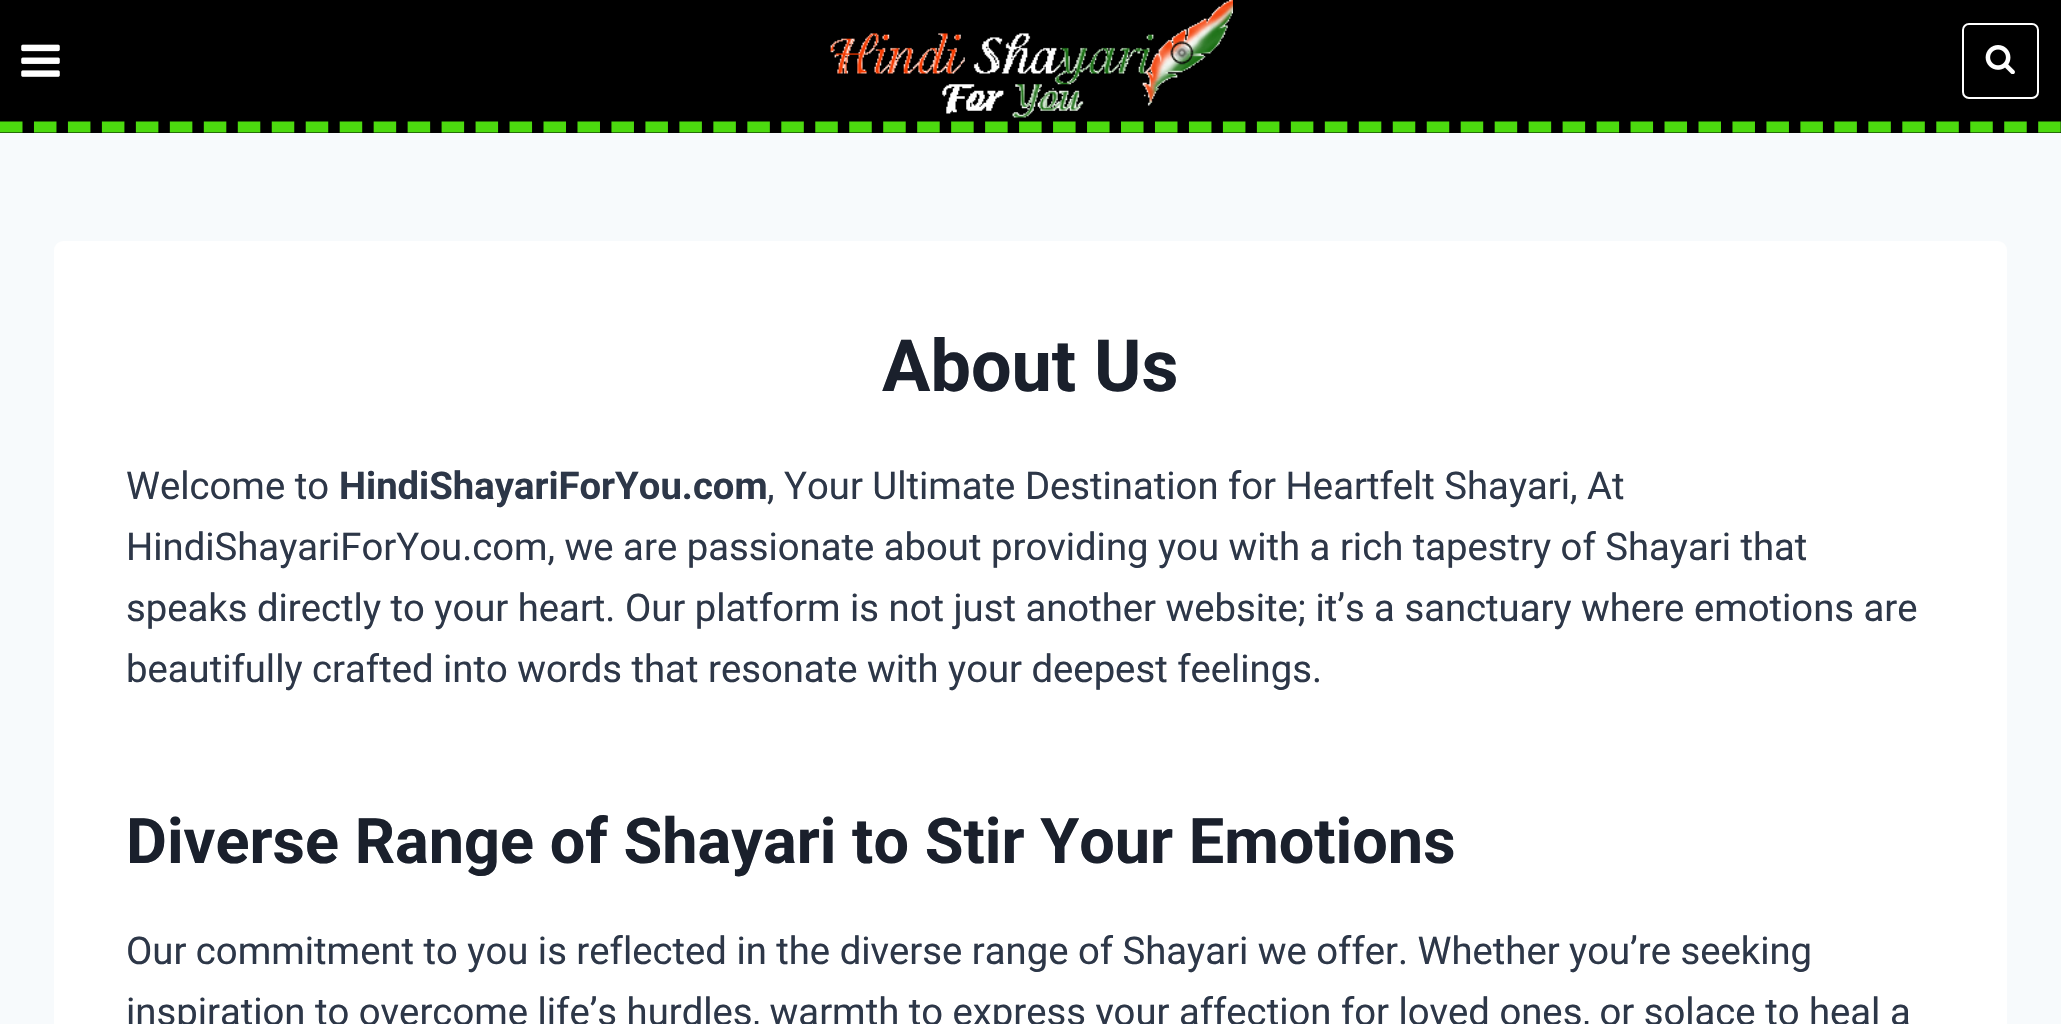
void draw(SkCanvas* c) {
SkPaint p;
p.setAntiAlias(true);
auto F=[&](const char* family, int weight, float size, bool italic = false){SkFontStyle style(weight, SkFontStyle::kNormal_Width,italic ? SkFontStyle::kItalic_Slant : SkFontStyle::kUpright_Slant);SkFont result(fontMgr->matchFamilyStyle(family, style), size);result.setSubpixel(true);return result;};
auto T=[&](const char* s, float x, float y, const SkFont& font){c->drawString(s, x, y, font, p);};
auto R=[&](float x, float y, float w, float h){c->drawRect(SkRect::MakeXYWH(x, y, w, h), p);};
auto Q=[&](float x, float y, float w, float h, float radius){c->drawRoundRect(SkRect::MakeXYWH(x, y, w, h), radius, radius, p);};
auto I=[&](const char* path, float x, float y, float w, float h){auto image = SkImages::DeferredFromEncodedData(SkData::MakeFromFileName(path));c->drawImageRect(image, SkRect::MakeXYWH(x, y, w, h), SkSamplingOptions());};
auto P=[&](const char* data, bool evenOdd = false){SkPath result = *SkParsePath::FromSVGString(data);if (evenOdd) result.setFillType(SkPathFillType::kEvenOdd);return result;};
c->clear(0xfff7fafc);
p.setColor(0xff000000);
R(0,0,2061,133);
p.setStroke(true);
p.setStrokeWidth(11.2);
p.setColor(0xff4cda0f);
p.setPathEffect(SkDashPathEffect::Make({{22.5f,11.47f}}, 0));
c->drawPath(P("M0 127h2061"),p);
p.setPathEffect(nullptr);
I("1.png",21,44,39,33);
I("2.png",830,0,403,118);
p.setStrokeWidth(2);
p.setColor(0xffffffff);
c->drawRoundRect(SkRect::MakeXYWH(1963,24,75,74),6,6,p);
I("3.png",1985,45,30,29);
p.setStroke(false);
Q(54,241,1953,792,9);
auto f1 = F("Roboto",700,72);
p.setColor(0xff1a202c);
T("About Us",882,391,f1);
auto f2 = F("Roboto",400,38.25);
p.setColor(0xff2d3748);
T("Welcome to",126,499,f2);
auto f3 = F("Roboto",700,38.25);
T("HindiShayariForYou.com",339,499,f3);
T(", Your Ultimate Destination for Heartfelt Shayari, At",767,499,f2);
T("HindiShayariForYou.com, we are passionate about providing you with a rich tapestry of Shayari that",126,560,f2);
T("speaks directly to your heart. Our platform is not just another website; it’s a sanctuary where emotions are",126,621,f2);
T("beautifully crafted into words that resonate with your deepest feelings.",126,682,f2);
auto f4 = F("Roboto",700,63);
p.setColor(0xff1a202c);
T("Diverse Range of Shayari to Stir Your Emotions",126,863,f4);
p.setColor(0xff2d3748);
T("Our commitment to you is reflected in the diverse range of Shayari we offer. Whether you’re seeking",126,964,f2);
T("inspiration to overcome life’s hurdles, warmth to express your affection for loved ones, or solace to heal a",126,1025,f2);
}
